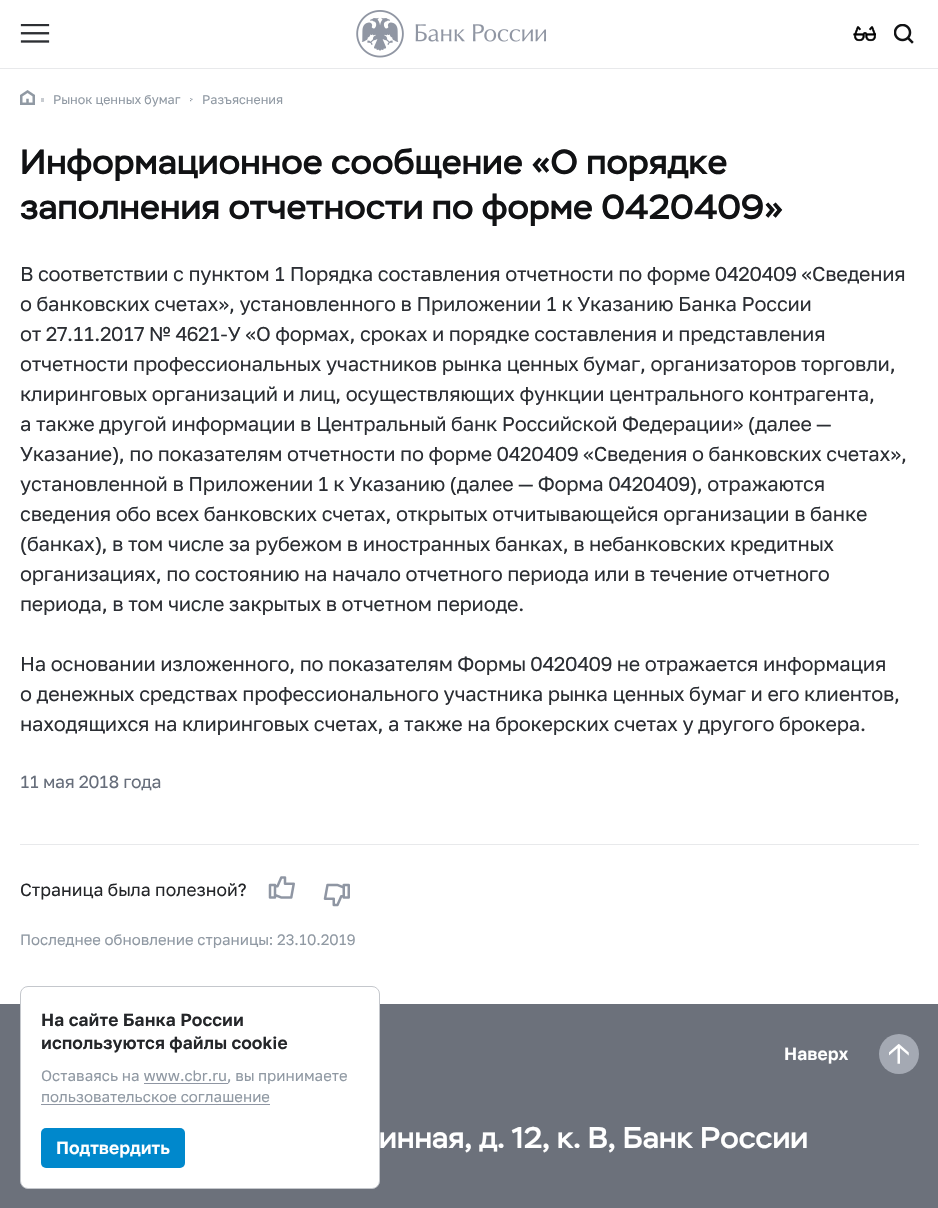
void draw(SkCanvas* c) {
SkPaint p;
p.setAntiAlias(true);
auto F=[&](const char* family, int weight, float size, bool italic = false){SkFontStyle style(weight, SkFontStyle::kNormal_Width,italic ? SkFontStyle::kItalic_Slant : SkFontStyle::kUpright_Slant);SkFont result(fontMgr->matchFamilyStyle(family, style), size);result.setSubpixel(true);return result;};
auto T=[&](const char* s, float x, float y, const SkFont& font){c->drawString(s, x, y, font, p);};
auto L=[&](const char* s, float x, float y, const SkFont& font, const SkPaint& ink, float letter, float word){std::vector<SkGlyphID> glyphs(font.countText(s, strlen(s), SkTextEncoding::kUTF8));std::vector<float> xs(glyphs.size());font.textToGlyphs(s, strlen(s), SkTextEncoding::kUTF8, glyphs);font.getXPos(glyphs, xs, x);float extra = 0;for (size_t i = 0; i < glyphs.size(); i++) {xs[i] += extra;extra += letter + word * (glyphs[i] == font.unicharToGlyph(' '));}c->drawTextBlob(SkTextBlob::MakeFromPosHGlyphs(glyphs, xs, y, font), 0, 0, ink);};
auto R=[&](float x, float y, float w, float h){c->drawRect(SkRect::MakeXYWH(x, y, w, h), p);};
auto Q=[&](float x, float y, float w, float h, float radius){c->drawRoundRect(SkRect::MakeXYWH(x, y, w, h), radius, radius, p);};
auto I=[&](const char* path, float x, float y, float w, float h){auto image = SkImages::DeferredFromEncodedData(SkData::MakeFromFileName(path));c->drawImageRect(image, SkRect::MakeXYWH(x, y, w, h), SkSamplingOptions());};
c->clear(0xffffffff);
p.setColor(0xffe8e9eb);
R(0,68,938,1);
I("1.png",20,24,30,19);
I("2.png",356,10,190,48);
I("3.png",853,26,23,16);
I("4.png",894,24,20,20);
I("5.png",20,90,15,15);
p.setColor(0xffc8ccd1);
R(41,98,3,4);
auto f1 = F("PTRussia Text",400,12.5);
p.setColor(0xff9099a3);
T("Рынок ценных бумаг",53,104,f1);
I("6.png",190,98,3,4);
T("Разъяснения",202,104,f1);
auto f2 = F("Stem",500,35);
p.setColor(0xff111214);
T("Информационное сообщение «О порядке",20,174,f2);
T("заполнения отчетности по форме 0420409»",20,219,f2);
auto f3 = F("PTRussia Text",400,20);
p.setColor(0xff2b2e33);
L("В соответствии с пунктом 1 Порядка составления отчетности по форме 0420409 «Сведения",20,281,f3,p,-.25,0);
L("о банковских счетах», установленного в Приложении 1 к Указанию Банка России",20,311,f3,p,-.25,0);
L("от 27.11.2017 № 4621-У «О формах, сроках и порядке составления и представления",20,341,f3,p,-.25,0);
L("отчетности профессиональных участников рынка ценных бумаг, организаторов торговли,",20,371,f3,p,-.25,0);
L("клиринговых организаций и лиц, осуществляющих функции центрального контрагента,",20,401,f3,p,-.25,0);
L("а также другой информации в Центральный банк Российской Федерации» (далее —",20,431,f3,p,-.25,0);
L("Указание), по показателям отчетности по форме 0420409 «Сведения о банковских счетах»,",20,461,f3,p,-.25,0);
L("установленной в Приложении 1 к Указанию (далее — Форма 0420409), отражаются",20,491,f3,p,-.25,0);
L("сведения обо всех банковских счетах, открытых отчитывающейся организации в банке",20,521,f3,p,-.25,0);
L("(банках), в том числе за рубежом в иностранных банках, в небанковских кредитных",20,551,f3,p,-.25,0);
L("организациях, по состоянию на начало отчетного периода или в течение отчетного",20,581,f3,p,-.25,0);
L("периода, в том числе закрытых в отчетном периоде.",20,611,f3,p,-.25,0);
L("На основании изложенного, по показателям Формы 0420409 не отражается информация",20,671,f3,p,-.25,0);
L("о денежных средствах профессионального участника рынка ценных бумаг и его клиентов,",20,701,f3,p,-.25,0);
L("находящихся на клиринговых счетах, а также на брокерских счетах у другого брокера.",20,731,f3,p,-.25,0);
auto f4 = F("PTRussia Text",400,17.5);
p.setColor(0xff676e7b);
L("11 мая 2018 года",20,788,f4,p,-.25,0);
p.setColor(0xffe8e9eb);
R(20,844,899,1);
p.setColor(0xff242629);
T("Страница была полезной?",20,896,f4);
I("7.png",268,876,27,23);
I("8.png",323,883,27,24);
auto f5 = F("PTRussia Text",400,15);
p.setColor(0xff9099a3);
T("Последнее обновление страницы: 23.10.2019",20,945,f5);
p.setColor(0xff6c717b);
R(0,1004,938,204);
p.setColor(0xffffffff);
c->drawRoundRect(SkRect::MakeXYWH(20.5,986.5,359,202),7.5,7.5,p);
p.setStroke(true);
p.setStrokeWidth(1);
p.setColor(0xffc4c7cc);
c->drawRoundRect(SkRect::MakeXYWH(20.5,986.5,359,202),7.5,7.5,p);
auto f6 = F("PTRussia Text",500,17.5);
p.setStroke(false);
p.setColor(0xff242629);
T("На сайте Банка России",41,1026,f6);
T("используются файлы cookie",41,1049,f6);
p.setColor(0xff9099a3);
T("Оставаясь на www.cbr.ru, вы принимаете",41,1081,f5);
p.setColor(0xff8f96a3);
R(144,1083,84,1);
p.setColor(0xff9099a3);
T("пользовательское соглашение",41,1102,f5);
p.setColor(0xff8f96a3);
R(41,1104,229,1);
p.setColor(0xff0088cc);
Q(41,1128,144,40,5);
p.setColor(0xffffffff);
T("Подтвердить",56,1154,f6);
T("Наверх",784,1060,f6);
p.setColor(0xffa4a9b3);
c->drawCircle(899,1054,20,p);
I("9.png",889,1044,20,20);
auto f7 = F("Stem",500,30);
p.setColor(0xffffffff);
T("инная, д. 12, к. В, Банк России",379,1148,f7);
}
